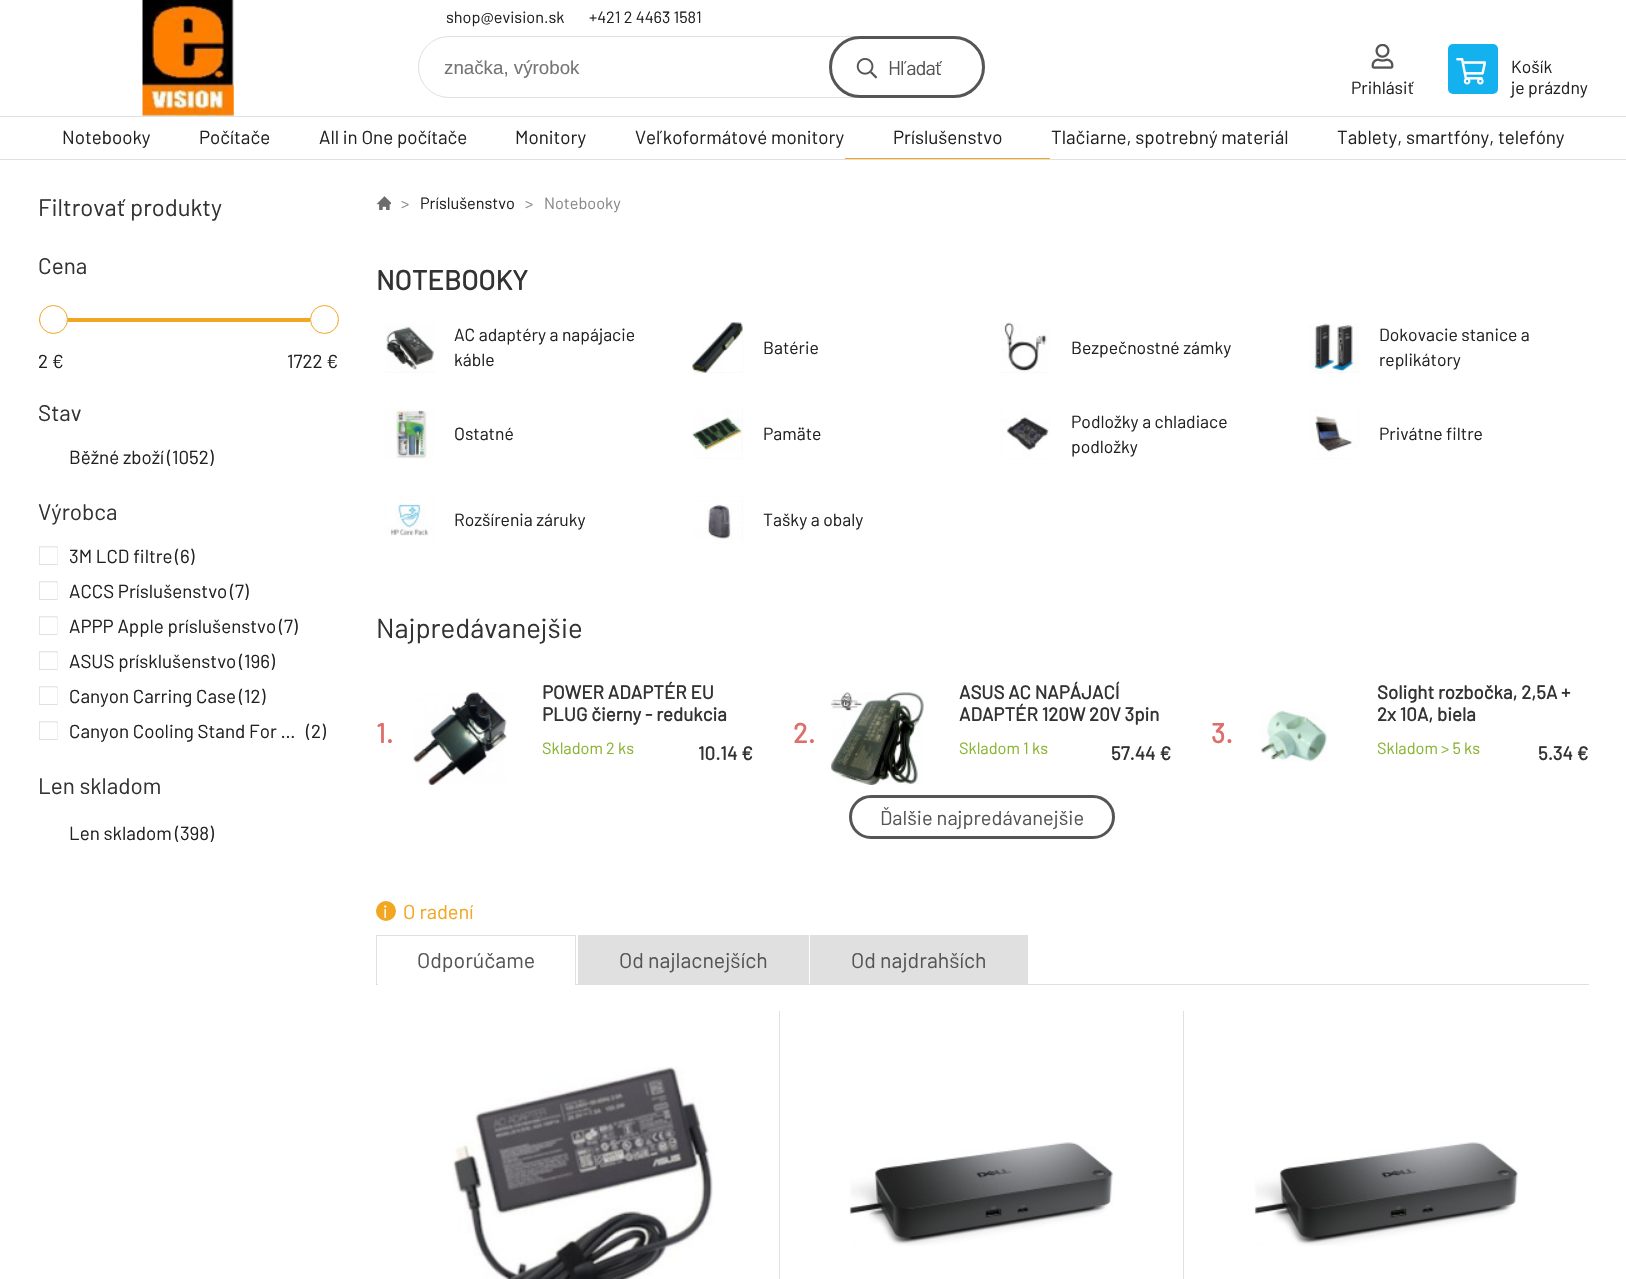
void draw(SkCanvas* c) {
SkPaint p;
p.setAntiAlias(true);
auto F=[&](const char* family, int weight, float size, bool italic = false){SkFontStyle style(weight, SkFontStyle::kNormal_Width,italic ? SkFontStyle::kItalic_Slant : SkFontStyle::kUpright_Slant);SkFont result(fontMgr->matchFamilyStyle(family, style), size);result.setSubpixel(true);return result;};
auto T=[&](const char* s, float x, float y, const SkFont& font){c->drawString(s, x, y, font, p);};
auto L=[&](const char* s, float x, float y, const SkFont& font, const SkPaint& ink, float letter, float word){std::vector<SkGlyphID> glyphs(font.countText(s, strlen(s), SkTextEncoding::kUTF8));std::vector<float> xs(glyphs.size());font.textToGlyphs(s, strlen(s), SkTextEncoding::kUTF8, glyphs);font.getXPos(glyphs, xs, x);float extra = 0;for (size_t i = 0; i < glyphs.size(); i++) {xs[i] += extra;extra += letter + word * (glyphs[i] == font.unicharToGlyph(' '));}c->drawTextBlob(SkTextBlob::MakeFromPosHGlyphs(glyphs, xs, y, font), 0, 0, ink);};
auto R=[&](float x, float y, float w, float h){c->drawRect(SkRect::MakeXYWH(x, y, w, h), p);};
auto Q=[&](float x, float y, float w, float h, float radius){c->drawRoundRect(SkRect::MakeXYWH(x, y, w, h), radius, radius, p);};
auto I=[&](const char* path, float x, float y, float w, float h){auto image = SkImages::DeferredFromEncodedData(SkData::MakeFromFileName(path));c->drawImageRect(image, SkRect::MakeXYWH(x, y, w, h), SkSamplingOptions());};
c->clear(0xffffffff);
I("1.png",142,0,92,116);
auto f1 = F("Barlow",400,16.25);
p.setColor(0xff222222);
T("shop@evision.sk",446,23,f1);
T("+421 2 4463 1581",589,23,f1);
p.setStroke(true);
p.setStrokeWidth(1);
p.setColor(0xffe0e0e0);
c->drawRoundRect(SkRect::MakeXYWH(418.5,36.5,566,61),30.5,30.5,p);
auto f2 = F("Liberation Sans",400,18.75);
p.setStroke(false);
p.setColor(0xff757575);
T("značka, výrobok",444,74,f2);
I("2.png",856,58,22,21);
p.setStroke(true);
p.setStrokeWidth(3);
p.setColor(0xff555555);
c->drawRoundRect(SkRect::MakeXYWH(830.5,37.5,153,59),29.5,29.5,p);
auto f3 = F("Barlow",400,20);
p.setStroke(false);
L("Hľadať",888,75,f3,p,-1,0);
I("3.png",1371,44,23,25);
auto f4 = F("Barlow",400,17.5);
p.setColor(0xff222222);
T("Prihlásiť",1351,94,f4);
p.setColor(0xff14b1ef);
Q(1448,44,50,50,5);
I("4.png",1456,58,30,27);
p.setColor(0xff222222);
T("Košík",1511,73,f4);
T("je prázdny",1511,94,f4);
p.setColor(0xffe0e0e0);
R(0,116,1626,1);
R(0,159,1626,1);
auto f5 = F("Barlow",400,18.75);
p.setColor(0xff222222);
T("Notebooky",62,144,f5);
T("Počítače",199,144,f5);
T("All in One počítače",319,144,f5);
T("Monitory",515,144,f5);
T("Veľkoformátové monitory",635,144,f5);
T("Príslušenstvo",893,144,f5);
p.setColor(0xfff2a621);
R(845,158,205,1);
p.setColor(0xff222222);
T("Tlačiarne, spotrebný materiál",1051,144,f5);
T("Tablety, smartfóny, telefóny",1337,144,f5);
auto f6 = F("Barlow",400,23.75);
p.setColor(0xff333333);
T("Filtrovať produkty",38,216,f6);
auto f7 = F("Barlow",400,22.5);
T("Cena",38,274,f7);
p.setColor(0xfff2a621);
R(39,318,271,4);
p.setColor(0xffffffff);
c->drawCircle(53.5,319.5,14,p);
p.setStroke(true);
p.setStrokeWidth(1);
p.setColor(0xfff2a621);
c->drawCircle(53.5,319.5,14,p);
c->drawCircle(324.5,319.5,14,p);
p.setStroke(false);
p.setColor(0xff222222);
T("2 €",38,368,f5);
T("1722 €",287,368,f5);
p.setColor(0xff333333);
T("Stav",38,421,f7);
p.setColor(0xff222222);
T("Běžné zboží",69,464,f5);
T("(1052)",167,464,f5);
p.setColor(0xff333333);
T("Výrobca",38,520,f7);
I("5.png",39,546,19,19);
p.setColor(0xff222222);
T("3M LCD filtre",69,563,f5);
T("(6)",175,563,f5);
I("5.png",39,581,19,19);
T("ACCS Príslušenstvo",69,598,f5);
T("(7)",230,598,f5);
I("5.png",39,616,19,19);
T("APPP Apple príslušenstvo",69,633,f5);
T("(7)",279,633,f5);
I("5.png",39,651,19,19);
T("ASUS prísklušenstvo",69,668,f5);
T("(196)",239,668,f5);
I("5.png",39,686,19,19);
T("Canyon Carring Case",69,703,f5);
T("(12)",239,703,f5);
I("5.png",39,721,19,19);
T("Canyon Cooling Stand For …",69,738,f5);
T("(2)",306,738,f5);
p.setColor(0xff333333);
T("Len skladom",38,794,f7);
p.setColor(0xff222222);
T("Len skladom",69,840,f5);
T("(398)",175,840,f5);
I("6.png",376,196,15,14);
p.setColor(0xff888888);
T(">",401,209,f1);
p.setColor(0xff222222);
T("Príslušenstvo",420,209,f1);
p.setColor(0xff888888);
T(">",525,209,f1);
T("Notebooky",544,209,f1);
auto f8 = F("Barlow",700,27.5);
p.setColor(0xff333333);
T("NOTEBOOKY",376,290,f8);
p.setColor(0xfff7f7f7);
R(385,372,50,1);
I("7.png",385,323,50,50);
p.setColor(0xff222222);
T("AC adaptéry a napájacie",454,341,f4);
T("káble",454,366,f4);
p.setColor(0xfff7f7f7);
R(693,323,50,50);
I("8.png",692,322,51,51);
p.setColor(0xff222222);
T("Batérie",763,354,f4);
p.setColor(0xfff7f7f7);
R(1001,323,50,50);
I("9.png",1001,322,50,51);
p.setColor(0xff222222);
T("Bezpečnostné zámky",1071,354,f4);
p.setColor(0xfff7f7f7);
R(1309,323,50,50);
I("10.png",1309,323,50,50);
p.setColor(0xff222222);
T("Dokovacie stanice a",1379,341,f4);
T("replikátory",1379,366,f4);
I("11.png",385,409,50,50);
T("Ostatné",454,440,f4);
p.setColor(0xfff7f7f7);
R(693,409,50,50);
I("12.png",692,409,51,50);
p.setColor(0xff222222);
T("Pamäte",763,440,f4);
p.setColor(0xfff7f7f7);
R(1001,409,50,50);
I("13.png",1001,409,50,50);
p.setColor(0xff222222);
T("Podložky a chladiace",1071,428,f4);
T("podložky",1071,453,f4);
p.setColor(0xfff7f7f7);
R(1309,409,50,50);
I("14.png",1309,409,50,50);
p.setColor(0xff222222);
T("Privátne filtre",1379,440,f4);
I("15.png",385,495,50,50);
T("Rozšírenia záruky",454,526,f4);
p.setColor(0xfff7f7f7);
R(742,495,1,50);
I("16.png",693,495,50,50);
p.setColor(0xff222222);
T("Tašky a obaly",763,526,f4);
auto f9 = F("Barlow",400,27.5);
p.setColor(0xff333333);
T("Najpredávanejšie",376,638,f9);
p.setColor(0xffdc6f69);
T("1.",376,743,f8);
I("17.png",413,692,94,93);
auto f10 = F("Barlow",700,18.75);
p.setColor(0xff333333);
T("POWER ADAPTÉR EU",542,699,f10);
T("PLUG čierny - redukcia",542,721,f10);
p.setColor(0xff89b432);
T("Skladom 2 ks",542,754,f1);
p.setColor(0xff333333);
T("10.14 €",698,760,f10);
p.setColor(0xffdc6f69);
T("2.",793,743,f8);
I("18.png",831,692,93,93);
p.setColor(0xff333333);
T("ASUS AC NAPÁJACÍ",959,699,f10);
T("ADAPTÉR 120W 20V 3pin",959,721,f10);
p.setColor(0xff89b432);
T("Skladom 1 ks",959,754,f1);
p.setColor(0xff333333);
T("57.44 €",1111,760,f10);
p.setColor(0xffdc6f69);
T("3.",1211,743,f8);
I("19.png",1259,710,68,52);
p.setColor(0xff333333);
T("Solight rozbočka, 2,5A +",1377,699,f10);
T("2x 10A, biela",1377,721,f10);
p.setColor(0xff89b432);
T("Skladom > 5 ks",1377,754,f1);
p.setColor(0xff333333);
T("5.34 €",1538,760,f10);
p.setStroke(true);
p.setStrokeWidth(3);
p.setColor(0xff555555);
c->drawRoundRect(SkRect::MakeXYWH(850.5,796.5,263,41),20.5,20.5,p);
p.setStroke(false);
T("Ďalšie najpredávanejšie",880,825,f3);
p.setColor(0xffe0e0e0);
R(376,984,1213,1);
p.setColor(0xfff2a621);
c->drawCircle(386,911,10,p);
p.setColor(0xffffffff);
T("i",383,918,f4);
p.setColor(0xfff2a621);
T("O radení",403,919,f3);
p.setColor(0xffe0e0e0);
R(376,935,200,1);
R(575,935,1,49);
R(376,935,1,49);
auto f11 = F("Barlow",400,21.25);
p.setColor(0xff555555);
T("Odporúčame",417,968,f11);
p.setColor(0xffffffff);
R(378,984,197,1);
p.setColor(0xffe0e0e0);
R(578,935,231,49);
p.setColor(0xff555555);
T("Od najlacnejších",619,968,f11);
p.setColor(0xffe0e0e0);
R(810,935,218,49);
p.setColor(0xff555555);
T("Od najdrahších",851,968,f11);
p.setColor(0xffe0e0e0);
R(779,1011,1,268);
I("20.png",453,1067,260,212);
R(1183,1011,1,268);
I("21.png",849,1142,265,104);
I("22.png",1254,1142,264,104);
}
